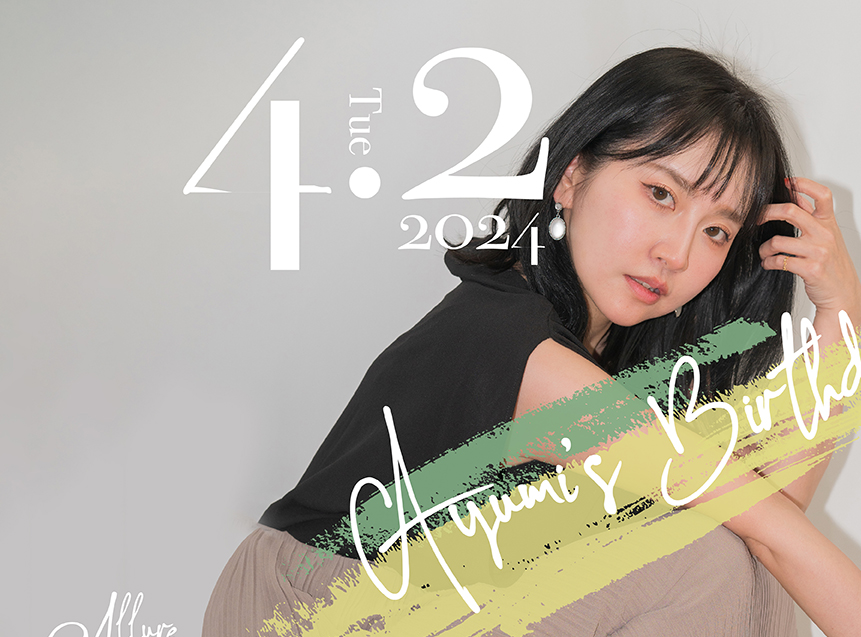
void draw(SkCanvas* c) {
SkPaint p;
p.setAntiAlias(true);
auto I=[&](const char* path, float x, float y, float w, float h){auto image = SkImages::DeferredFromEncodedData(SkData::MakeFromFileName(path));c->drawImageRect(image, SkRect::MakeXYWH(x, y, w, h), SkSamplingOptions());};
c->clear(0xffffffff);
I("1.png",0,0,861,637);
}
